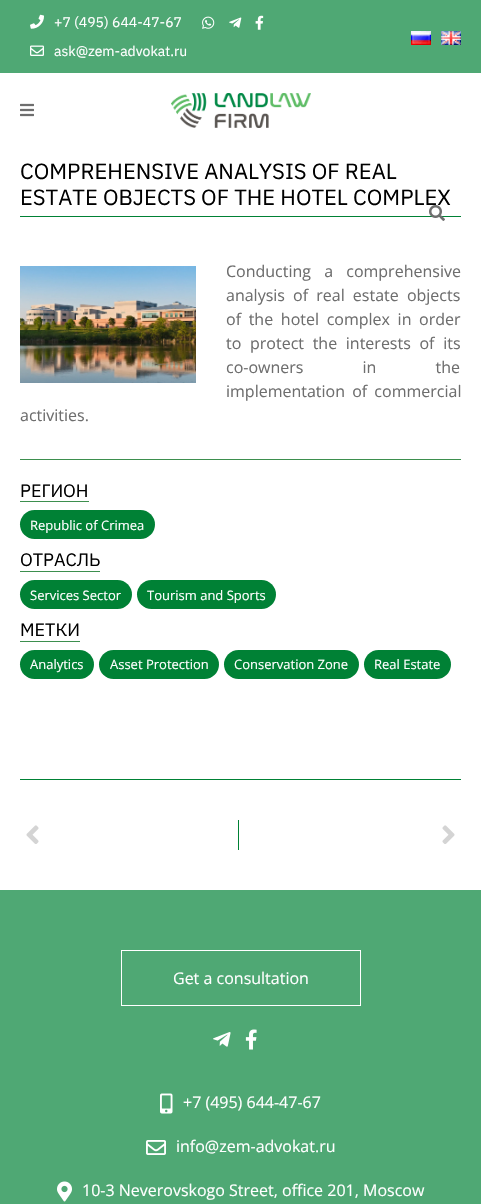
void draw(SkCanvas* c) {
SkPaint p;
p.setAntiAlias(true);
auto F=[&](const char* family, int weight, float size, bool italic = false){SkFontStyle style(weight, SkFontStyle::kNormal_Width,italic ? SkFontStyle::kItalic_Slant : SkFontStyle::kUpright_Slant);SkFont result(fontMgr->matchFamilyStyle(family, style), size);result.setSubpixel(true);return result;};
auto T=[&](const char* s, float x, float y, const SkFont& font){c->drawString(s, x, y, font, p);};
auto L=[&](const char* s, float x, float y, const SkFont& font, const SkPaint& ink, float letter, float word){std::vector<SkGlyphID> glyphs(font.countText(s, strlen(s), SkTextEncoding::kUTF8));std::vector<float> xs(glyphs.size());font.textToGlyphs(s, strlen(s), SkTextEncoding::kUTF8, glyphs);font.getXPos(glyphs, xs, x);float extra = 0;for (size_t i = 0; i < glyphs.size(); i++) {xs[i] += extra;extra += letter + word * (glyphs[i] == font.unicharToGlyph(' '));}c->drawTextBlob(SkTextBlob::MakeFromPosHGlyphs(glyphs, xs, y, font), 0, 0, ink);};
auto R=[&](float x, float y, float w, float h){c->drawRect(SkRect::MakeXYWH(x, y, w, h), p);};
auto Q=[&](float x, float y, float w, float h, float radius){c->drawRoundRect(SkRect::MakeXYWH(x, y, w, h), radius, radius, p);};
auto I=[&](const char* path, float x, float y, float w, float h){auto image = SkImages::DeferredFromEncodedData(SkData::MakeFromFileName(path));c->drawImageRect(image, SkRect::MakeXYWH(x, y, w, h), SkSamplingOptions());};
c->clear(0xffffffff);
p.setColor(0xff4fa874);
R(0,0,481,73);
I("1.png",30,14,14,15);
auto f1 = F("IBM Plex Sans",400,14);
p.setColor(0xffffffff);
T("+7 (495) 644-47-67",54,27,f1);
I("2.png",30,45,14,11);
T("ask@zem-advokat.ru",54,56,f1);
I("3.png",202,16,13,13);
I("4.png",229,17,13,11);
I("5.png",255,15,9,15);
I("6.png",411,31,20,14);
I("7.png",441,31,20,14);
I("8.png",20,103,14,14);
I("9.png",171,93,140,35);
p.setColor(0xff008135);
R(20,216,441,1);
auto f2 = F("IBM Plex Sans",400,22);
p.setColor(0xff000000);
T("ESTATE OBJECTS OF THE HOTEL COMPLEX",20,205,f2);
I("10.png",429,205,16,16);
T("COMPREHENSIVE ANALYSIS OF REAL",20,179,f2);
p.setColor(0xff3d8f4e);
R(20,459,441,1);
auto f3 = F("Open Sans",400,16);
p.setColor(0xff6e6e6e);
L("Conducting a comprehensive",226,277,f3,p,0,9);
L("analysis of real estate objects",226,301,f3,p,0,4);
L("of the hotel complex in order",226,325,f3,p,0,3.5);
L("to protect the interests of its",226,349,f3,p,0,4.5);
L("co-owners in the",226,373,f3,p,0,55);
L("implementation of commercial",226,397,f3,p,0,3);
T("activities.",20,421,f3);
I("11.png",20,266,176,117);
p.setColor(0xff3d8f4e);
R(20,501,69,1);
auto f4 = F("IBM Plex Sans",400,18);
p.setColor(0xff000000);
T("РЕГИОН",20,497,f4);
p.setColor(0xff008135);
Q(20,510,135,29,14.5);
auto f5 = F("Open Sans",400,13);
p.setColor(0xffffffff);
T("Republic of Crimea",30,530,f5);
p.setColor(0xff3d8f4e);
R(20,571,80,1);
p.setColor(0xff000000);
T("ОТРАСЛЬ",20,566,f4);
p.setColor(0xff008135);
Q(20,580,112,29,14.5);
p.setColor(0xffffffff);
T("Services Sector",30,600,f5);
p.setColor(0xff008135);
Q(137,580,139,29,14.5);
p.setColor(0xffffffff);
T("Tourism and Sports",147,600,f5);
p.setColor(0xff3d8f4e);
R(20,641,60,1);
p.setColor(0xff000000);
T("МЕТКИ",20,636,f4);
p.setColor(0xff008135);
Q(20,650,74,29,14.5);
p.setColor(0xffffffff);
T("Analytics",30,669,f5);
p.setColor(0xff008135);
Q(99,650,120,29,14.5);
p.setColor(0xffffffff);
T("Asset Protection",110,669,f5);
p.setColor(0xff008135);
Q(224,650,135,29,14.5);
p.setColor(0xffffffff);
T("Conservation Zone",234,669,f5);
p.setColor(0xff008135);
Q(364,650,87,29,14.5);
p.setColor(0xffffffff);
T("Real Estate",374,669,f5);
p.setColor(0xff008135);
R(20,779,441,1);
R(238,820,1,30);
I("12.png",26,825,13,19);
I("13.png",442,825,13,19);
p.setColor(0xff4fa874);
R(0,890,481,314);
p.setStroke(true);
p.setStrokeWidth(1);
p.setColor(0xffffffff);
c->drawRect(SkRect::MakeXYWH(121.5,950.5,239,55),p);
p.setStroke(false);
T("Get a consultation",173,984,f3);
I("14.png",213,1032,18,15);
I("15.png",245,1029,12,21);
I("16.png",160,1093,13,21);
T("+7 (495) 644-47-67",183,1108,f3);
I("17.png",146,1140,20,15);
T("info@zem-advokat.ru",176,1152,f3);
I("18.png",57,1181,15,21);
T("10-3 Neverovskogo Street, office 201, Moscow",82,1196,f3);
}
